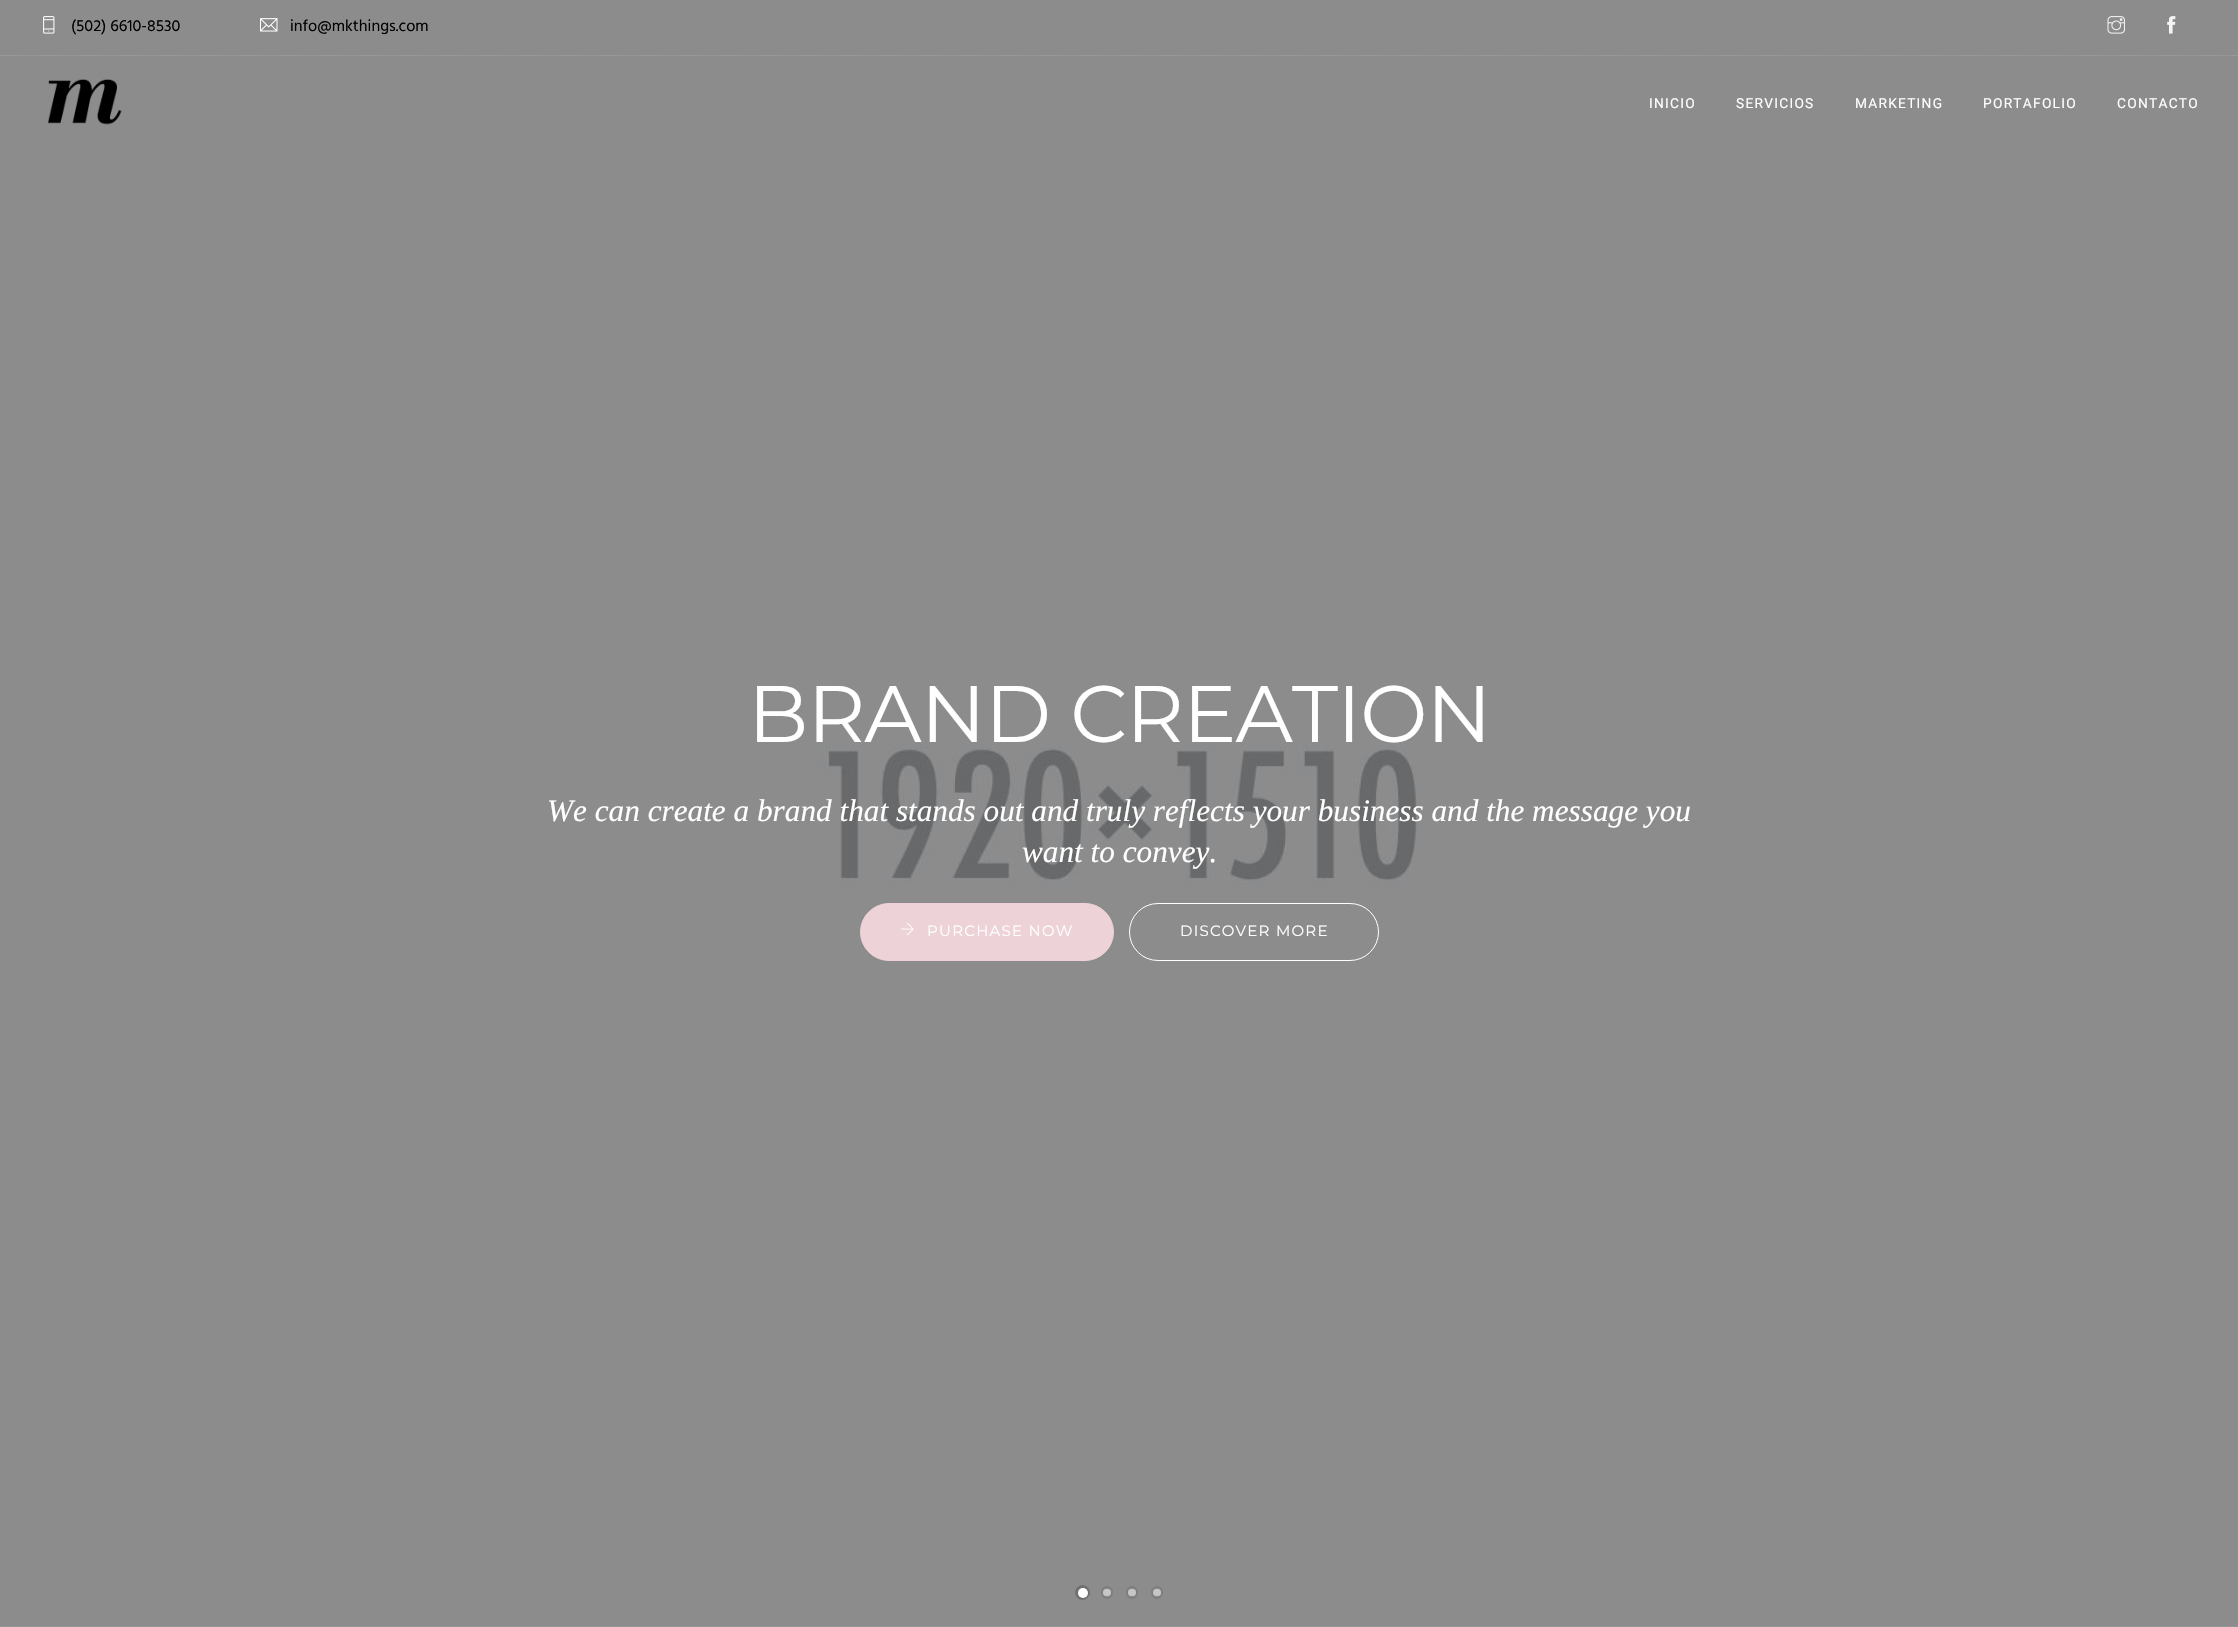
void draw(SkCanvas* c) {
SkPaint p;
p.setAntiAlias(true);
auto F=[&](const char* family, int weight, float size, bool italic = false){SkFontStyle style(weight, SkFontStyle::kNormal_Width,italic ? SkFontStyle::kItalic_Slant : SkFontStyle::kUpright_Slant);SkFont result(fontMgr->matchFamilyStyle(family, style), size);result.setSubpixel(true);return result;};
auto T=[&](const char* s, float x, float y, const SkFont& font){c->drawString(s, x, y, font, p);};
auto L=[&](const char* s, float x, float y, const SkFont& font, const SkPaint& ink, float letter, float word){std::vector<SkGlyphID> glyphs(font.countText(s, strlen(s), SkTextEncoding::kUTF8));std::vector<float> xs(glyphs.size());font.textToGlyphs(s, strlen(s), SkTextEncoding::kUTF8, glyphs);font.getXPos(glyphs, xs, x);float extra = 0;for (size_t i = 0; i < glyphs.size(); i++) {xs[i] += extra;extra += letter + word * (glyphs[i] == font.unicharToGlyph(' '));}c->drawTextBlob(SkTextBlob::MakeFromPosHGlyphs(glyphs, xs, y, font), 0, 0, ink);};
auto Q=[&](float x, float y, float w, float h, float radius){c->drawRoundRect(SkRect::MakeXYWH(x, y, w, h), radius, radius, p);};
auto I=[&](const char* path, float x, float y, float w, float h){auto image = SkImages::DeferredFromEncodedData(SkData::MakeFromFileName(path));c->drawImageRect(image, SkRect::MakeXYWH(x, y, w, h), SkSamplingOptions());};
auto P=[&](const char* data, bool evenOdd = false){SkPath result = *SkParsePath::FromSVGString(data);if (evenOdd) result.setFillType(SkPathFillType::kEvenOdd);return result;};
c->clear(0xffffffff);
I("6.png",0,0,2238,1627);
p.setStroke(true);
p.setStrokeWidth(1.2);
p.setColor(0xffa3a3a4);
p.setPathEffect(SkDashPathEffect::Make({{1.25f,1.25f}}, 0));
c->drawPath(P("M0 55.5h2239"),p);
p.setPathEffect(nullptr);
I("1.png",43,16,12,18);
auto f1 = F("Hind",400,16.25);
p.setStroke(false);
p.setColor(0xff000000);
T("(502) 6610-8530",71,31,f1);
I("2.png",260,18,18,14);
T("info@mkthings.com",290,31,f1);
I("3.png",2107,16,18,18);
I("4.png",2167,16,9,18);
I("5.png",47,79,75,46);
auto f2 = F("Roboto",400,13.75);
p.setColor(0xffffffff);
L("INICIO",1649,108,f2,p,1.25,0);
L("SERVICIOS",1736,108,f2,p,1.25,0);
L("MARKETING",1855,108,f2,p,1.25,0);
L("PORTAFOLIO",1983,108,f2,p,1.25,0);
L("CONTACTO",2117,108,f2,p,1.25,0);
auto f3 = F("Montserrat",400,80);
L("BRAND CREATION",748,742,f3,p,-.9,0);
auto f4 = F("Liberation Serif",400,31.25,true);
T("We can create a brand that stands out and truly reflects your business and the message you",547,821,f4);
T("want to convey.",1022,862,f4);
p.setColor(0xffedd2d7);
c->drawRoundRect(SkRect::MakeXYWH(860.5,903.5,253,57),28.5,28.5,p);
p.setStroke(true);
p.setStrokeWidth(1);
c->drawRoundRect(SkRect::MakeXYWH(860.5,903.5,253,57),28.5,28.5,p);
I("7.png",901,922,13,14);
auto f5 = F("Montserrat",400,15);
p.setStroke(false);
p.setColor(0xffffffff);
L("PURCHASE NOW",927,936,f5,p,1.25,0);
p.setStroke(true);
c->drawRoundRect(SkRect::MakeXYWH(1129.5,903.5,249,57),28.5,28.5,p);
p.setStroke(false);
L("DISCOVER MORE",1180,936,f5,p,1.25,0);
p.setStroke(true);
p.setStrokeWidth(3);
p.setColor(0xff707071);
c->drawCircle(1082.5,1592.5,6,p);
p.setStroke(false);
p.setColor(0xffffffff);
c->drawCircle(1083,1593,5,p);
p.setStroke(true);
p.setStrokeWidth(2);
p.setColor(0xff7e7e7f);
c->drawRoundRect(SkRect::MakeXYWH(1102,1587,10,11),5,5,p);
p.setStroke(false);
p.setColor(0xffc5c6c6);
Q(1103,1589,8,7,3.5);
p.setStroke(true);
p.setColor(0xff7e7e7f);
c->drawRoundRect(SkRect::MakeXYWH(1127,1587,10,11),5,5,p);
p.setStroke(false);
p.setColor(0xffc5c6c6);
Q(1128,1589,8,7,3.5);
p.setStroke(true);
p.setColor(0xff7e7e7f);
c->drawRoundRect(SkRect::MakeXYWH(1152,1587,10,11),5,5,p);
p.setStroke(false);
p.setColor(0xffc5c6c6);
Q(1153,1589,8,7,3.5);
}
